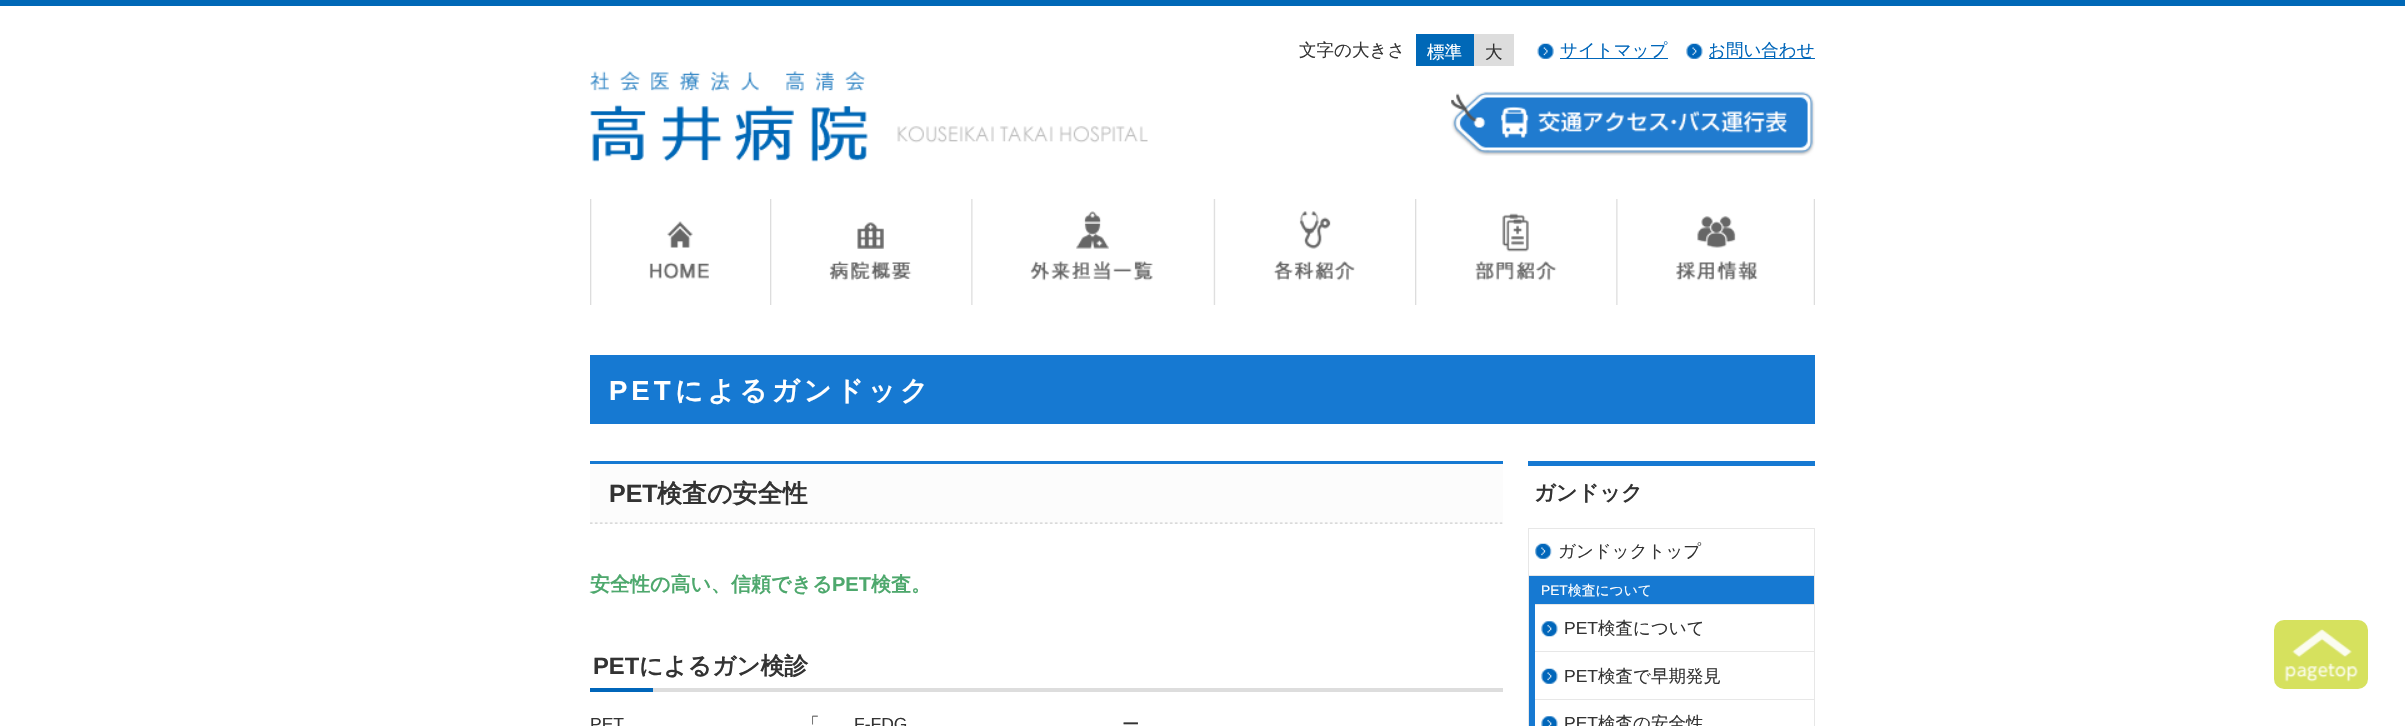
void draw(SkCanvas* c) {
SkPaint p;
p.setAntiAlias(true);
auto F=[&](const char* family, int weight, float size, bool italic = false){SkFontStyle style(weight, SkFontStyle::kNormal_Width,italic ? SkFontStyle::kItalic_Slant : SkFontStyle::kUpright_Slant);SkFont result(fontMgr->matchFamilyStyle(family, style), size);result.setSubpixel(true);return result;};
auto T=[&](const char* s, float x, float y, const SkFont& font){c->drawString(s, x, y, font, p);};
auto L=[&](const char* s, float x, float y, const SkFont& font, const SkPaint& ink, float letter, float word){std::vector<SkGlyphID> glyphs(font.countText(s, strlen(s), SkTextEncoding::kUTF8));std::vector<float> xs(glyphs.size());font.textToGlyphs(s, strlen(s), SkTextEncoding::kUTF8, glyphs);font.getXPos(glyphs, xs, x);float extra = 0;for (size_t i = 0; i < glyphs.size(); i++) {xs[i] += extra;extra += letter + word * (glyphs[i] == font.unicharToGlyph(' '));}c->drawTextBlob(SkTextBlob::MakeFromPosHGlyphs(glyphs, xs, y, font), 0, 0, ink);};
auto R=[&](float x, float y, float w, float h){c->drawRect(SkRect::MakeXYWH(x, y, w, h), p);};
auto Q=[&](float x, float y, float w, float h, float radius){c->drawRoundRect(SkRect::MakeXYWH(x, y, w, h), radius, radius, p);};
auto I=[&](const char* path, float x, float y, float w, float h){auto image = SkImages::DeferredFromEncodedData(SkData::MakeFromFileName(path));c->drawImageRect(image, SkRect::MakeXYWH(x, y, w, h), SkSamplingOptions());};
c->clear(0xffffffff);
p.setColor(0xff0068b7);
R(0,0,2405,6);
auto f1 = F("WenQuanYi Zen Hei",500,17.5);
p.setColor(0xff333333);
T("文字の大きさ",1299,56,f1);
p.setColor(0xff0068b7);
R(1416,34,58,32);
p.setColor(0xffffffff);
T("標準",1427,58,f1);
p.setColor(0xffdddddd);
R(1474,34,40,32);
p.setColor(0xff333333);
T("大",1485,58,f1);
I("1.png",1537,43,17,16);
p.setColor(0xff0066ba);
R(1560,58,108,1);
T("サイトマップ",1560,56,f1);
I("2.png",1686,43,17,16);
R(1709,58,106,1);
T("お問い合わせ",1708,56,f1);
I("3.png",1451,91,364,65);
I("4.png",590,71,558,91);
I("5.png",590,199,119,106);
I("6.png",770,199,142,106);
I("7.png",971,199,182,106);
I("8.png",1213,199,142,106);
I("9.png",1415,199,142,106);
I("10.png",1616,199,199,106);
p.setColor(0xff1679d2);
R(590,355,1225,69);
auto f2 = F("Liberation Sans",700,27.5);
p.setColor(0xffffffff);
L("PET",609,400,f2,p,4,0);
auto f3 = F("WenQuanYi Zen Hei",700,27.5);
L("によるガンドック",675,400,f3,p,4,0);
p.setColor(0xfffcfcfc);
R(590,464,913,60);
I("11.png",590,522,913,2);
p.setColor(0xff1679d2);
R(590,461,913,3);
auto f4 = F("Liberation Sans",700,25);
p.setColor(0xff333333);
T("PET",609,502,f4);
auto f5 = F("WenQuanYi Zen Hei",700,25);
T("検査の安全性",657,502,f5);
auto f6 = F("WenQuanYi Zen Hei",700,20);
p.setColor(0xff4ea86d);
T("安全性の高い、信頼できる",590,591,f6);
auto f7 = F("Liberation Sans",700,20);
T("PET",832,591,f7);
T("検査。",871,591,f6);
p.setColor(0xffdddddd);
R(653,688,850,4);
auto f8 = F("Liberation Sans",700,23.75);
p.setColor(0xff333333);
T("PET",593,674,f8);
auto f9 = F("WenQuanYi Zen Hei",700,23.75);
T("によるガン検診",639,674,f9);
p.setColor(0xff0066ba);
R(590,688,63,4);
auto f10 = F("Liberation Sans",400,17.5);
p.setColor(0xff333333);
T("PET",590,730,f10);
T("「",802,730,f1);
T("F-FDG",854,730,f10);
T("ー",1122,730,f1);
p.setColor(0xff1679d2);
R(1528,461,287,5);
auto f11 = F("WenQuanYi Zen Hei",700,21.25);
p.setColor(0xff333333);
T("ガンドック",1534,500,f11);
p.setColor(0xffe7e7e7);
R(1814,528,1,198);
R(1528,528,1,198);
R(1529,528,285,1);
I("12.png",1535,543,17,16);
p.setColor(0xff333333);
T("ガンドックトップ",1558,557,f1);
p.setColor(0xffe7e7e7);
R(1529,575,285,1);
p.setColor(0xff1679d2);
R(1529,576,285,28);
auto f12 = F("Liberation Sans",400,13.75);
p.setColor(0xffffffff);
T("PET",1541,595,f12);
auto f13 = F("WenQuanYi Zen Hei",500,13.75);
T("検査について",1568,595,f13);
p.setColor(0xff1679d2);
R(1529,604,6,122);
p.setColor(0xffe7e7e7);
R(1535,604,279,1);
I("13.png",1541,621,17,16);
p.setColor(0xff333333);
T("PET",1564,634,f10);
T("検査について",1598,634,f1);
p.setColor(0xffe7e7e7);
R(1535,651,279,1);
I("2.png",1541,668,17,16);
p.setColor(0xff333333);
T("PET",1564,682,f10);
T("検査で早期発見",1598,682,f1);
p.setColor(0xffe7e7e7);
R(1535,699,279,1);
I("14.png",1541,716,17,10);
p.setColor(0xff333333);
T("PET",1564,729,f10);
T("検査の安全性",1598,729,f1);
p.setColor(0xffd6e15e);
Q(2274,620,94,69,10);
I("15.png",2284,629,74,53);
}
